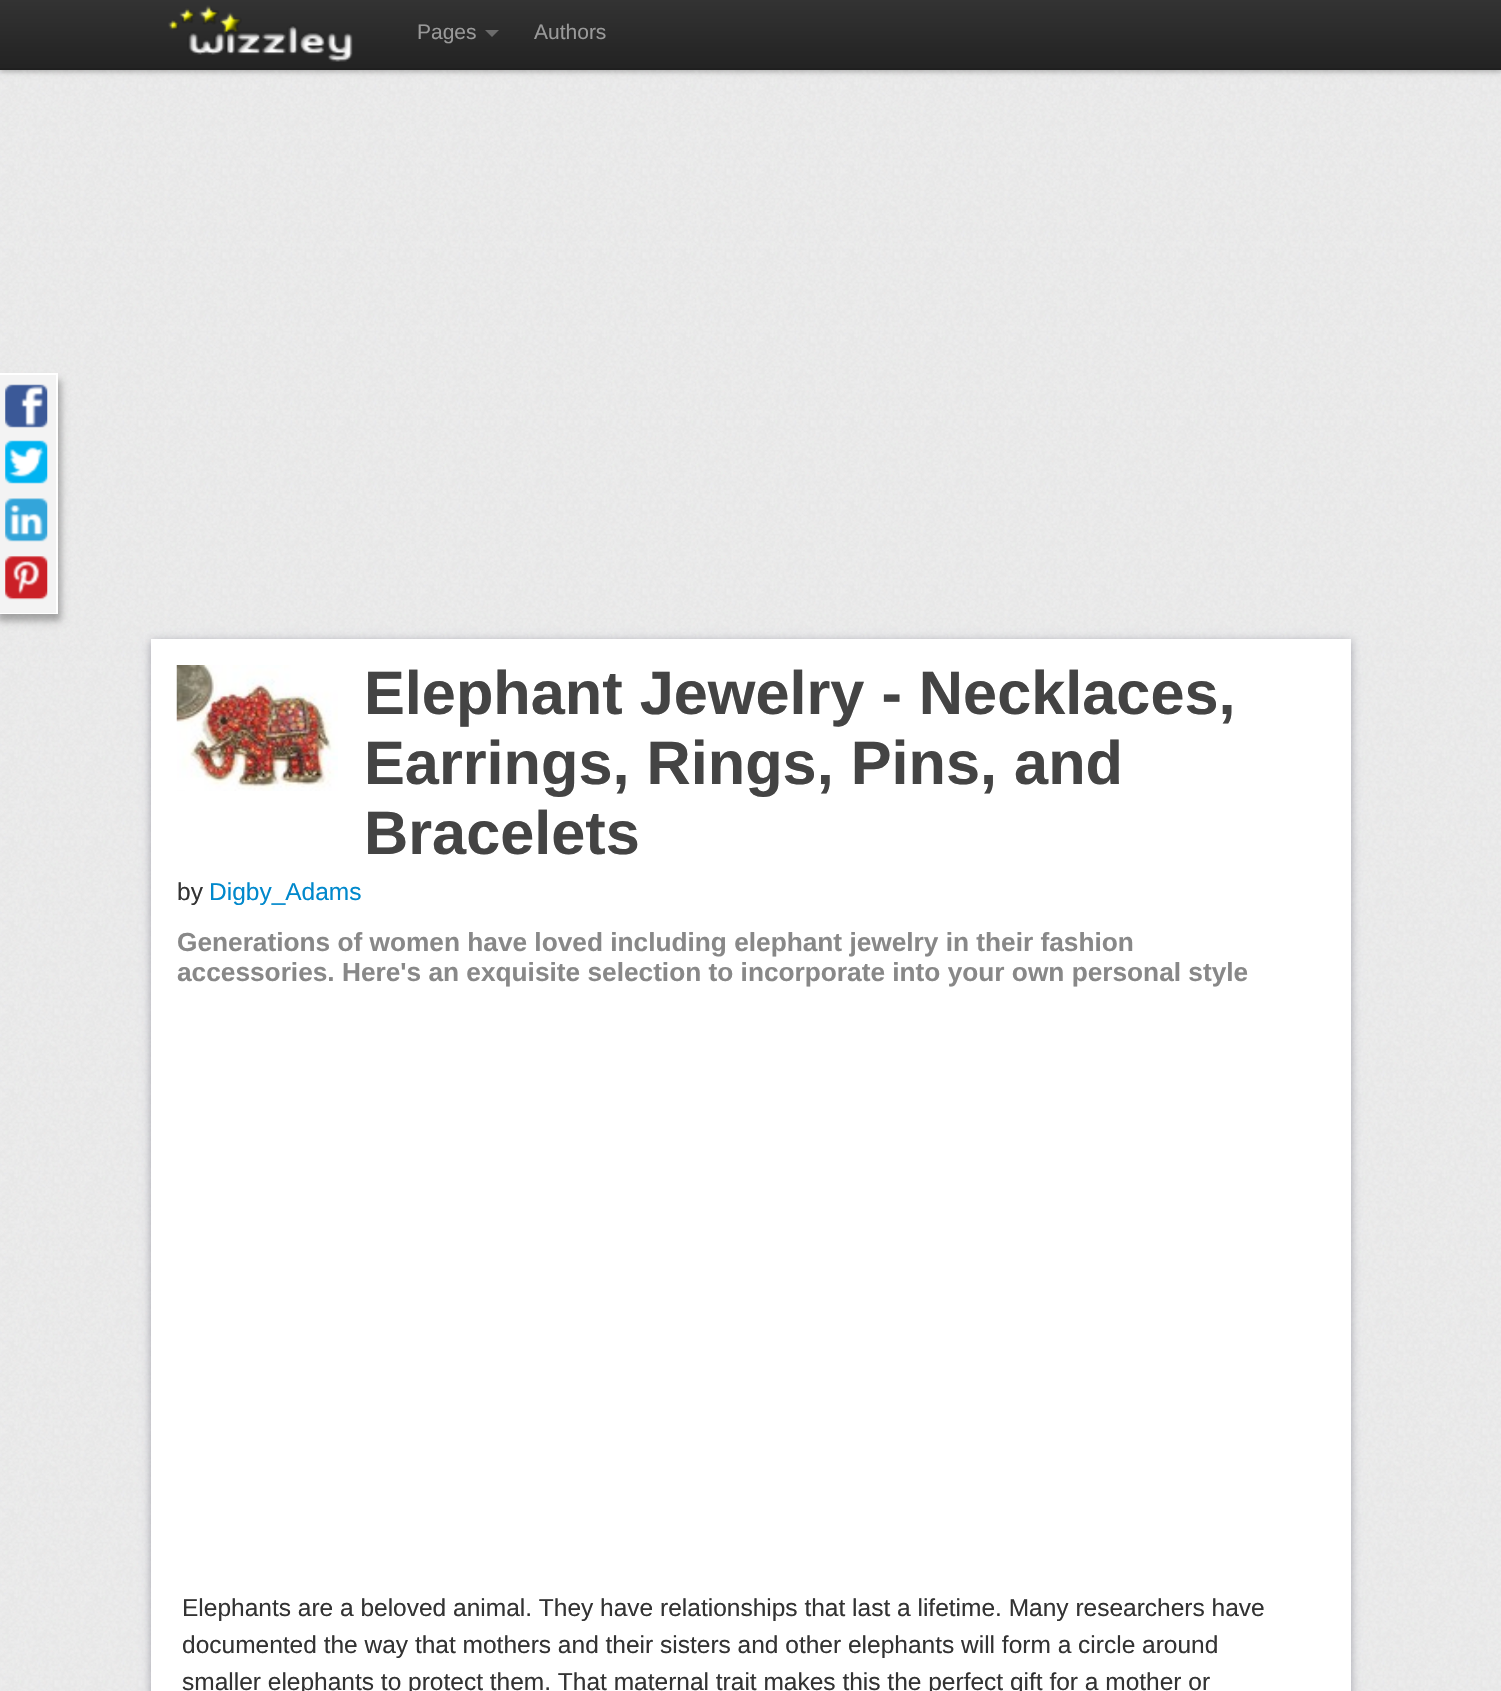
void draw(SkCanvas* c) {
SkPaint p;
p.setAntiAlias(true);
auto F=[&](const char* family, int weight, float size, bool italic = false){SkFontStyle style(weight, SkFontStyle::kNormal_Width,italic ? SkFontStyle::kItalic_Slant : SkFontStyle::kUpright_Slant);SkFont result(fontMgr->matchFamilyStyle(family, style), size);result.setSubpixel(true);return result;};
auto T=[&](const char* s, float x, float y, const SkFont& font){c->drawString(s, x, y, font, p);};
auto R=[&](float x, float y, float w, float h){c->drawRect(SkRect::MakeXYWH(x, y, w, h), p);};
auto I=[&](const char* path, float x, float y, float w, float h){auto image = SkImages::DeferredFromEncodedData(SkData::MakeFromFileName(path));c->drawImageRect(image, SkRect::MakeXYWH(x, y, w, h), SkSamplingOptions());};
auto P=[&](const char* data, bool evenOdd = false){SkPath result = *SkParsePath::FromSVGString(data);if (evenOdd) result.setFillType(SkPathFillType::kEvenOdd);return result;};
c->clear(0xffededed);
I("1.png",0,70,1501,1621);
p.setColor(0x40000000);
p.setMaskFilter(SkMaskFilter::MakeBlur(kNormal_SkBlurStyle, 2.5));
c->drawRect(SkRect::MakeXYWH(0,2,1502,70),p);
p.setMaskFilter(nullptr);
{
const SkColor colors[] = {0xff333333,0xff222222};
const float stops[] = {0,1};
const SkPoint ends[] = {{751,0}, {751,70}};
p.setShader(SkGradientShader::MakeLinear(ends, colors, stops, 2, SkTileMode::kClamp));
p.setAlpha(255);
}
R(0,0,1501,68);
p.setShader(nullptr);
p.setColor(0xff1f1f1f);
R(0,68,1501,2);
I("2.png",168,5,185,57);
auto f1 = F("Liberation Sans",400,21);
p.setColor(0xff999999);
T("Pages",417,39,f1);
p.setColor(0xff6b6b6b);
c->drawPath(P("M485 30h14l-7 7z"),p);
p.setColor(0xff999999);
T("Authors",534,39,f1);
p.setColor(0x4d000000);
p.setMaskFilter(SkMaskFilter::MakeBlur(kNormal_SkBlurStyle, 3.5));
c->drawRect(SkRect::MakeXYWH(-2,380,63,241),p);
p.setMaskFilter(nullptr);
p.setColor(0xffffffff);
R(0,373,58,241);
p.setColor(0xfff3f3f3);
R(0,375,56,238);
I("3.png",5,384,43,44);
I("4.png",5,440,43,44);
I("5.png",5,498,43,44);
I("6.png",5,556,43,44);
p.setColor(0x4d00001e);
p.setMaskFilter(SkMaskFilter::MakeBlur(kNormal_SkBlurStyle, 4.5));
c->drawRect(SkRect::MakeXYWH(151,641,1200,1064),p);
p.setMaskFilter(nullptr);
p.setColor(0xffffffff);
R(151,639,1200,1052);
I("7.png",176,665,162,126);
auto f2 = F("Liberation Sans",700,61.25);
p.setColor(0xff444444);
T("Elephant Jewelry - Necklaces,",364,714,f2);
T("Earrings, Rings, Pins, and",364,784,f2);
T("Bracelets",364,854,f2);
auto f3 = F("Liberation Sans",400,24.5);
p.setColor(0xff333333);
T("by",177,900,f3);
p.setColor(0xff0088cc);
T("Digby_Adams",209,900,f3);
auto f4 = F("Liberation Sans",700,26.25);
p.setColor(0xff888888);
T("Generations of women have loved including elephant jewelry in their fashion",177,951,f4);
T("accessories. Here's an exquisite selection to incorporate into your own personal style",177,981,f4);
p.setColor(0xff333333);
T("Elephants are a beloved animal. They have relationships that last a lifetime. Many researchers have",182,1616,f3);
T("documented the way that mothers and their sisters and other elephants will form a circle around",182,1653,f3);
T("smaller elephants to protect them. That maternal trait makes this the perfect gift for a mother or",182,1690,f3);
}
